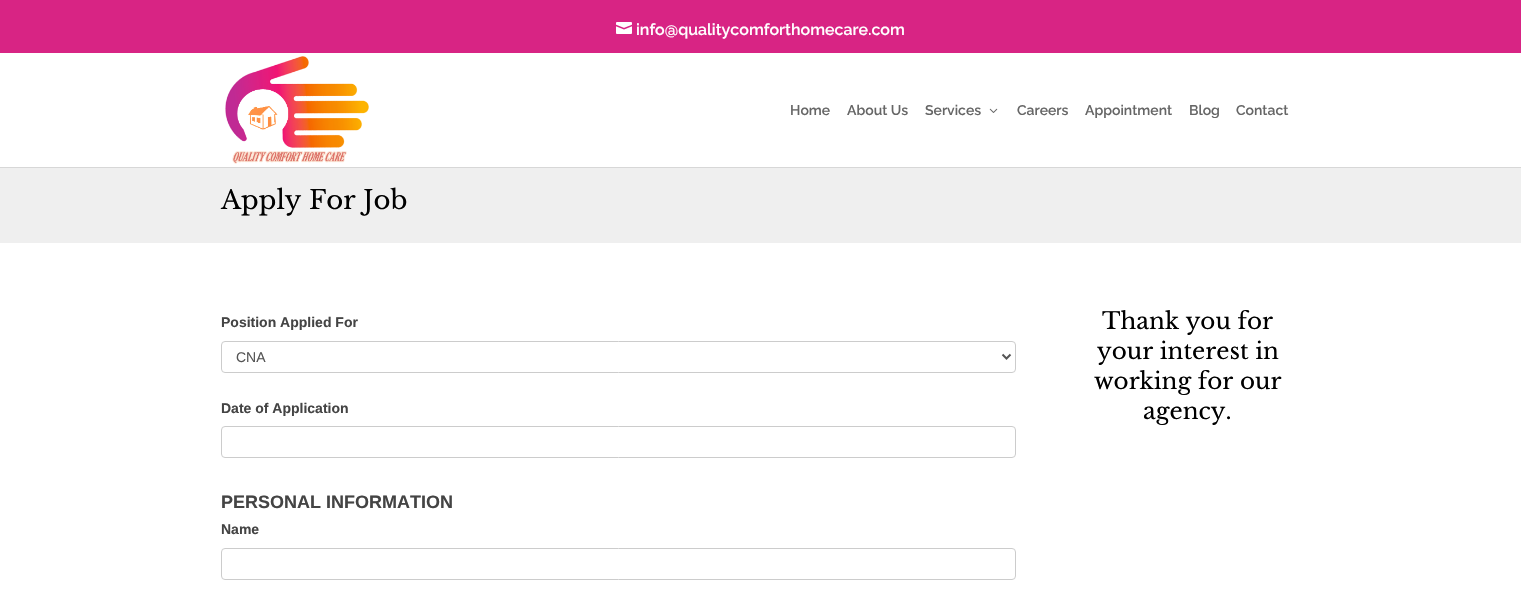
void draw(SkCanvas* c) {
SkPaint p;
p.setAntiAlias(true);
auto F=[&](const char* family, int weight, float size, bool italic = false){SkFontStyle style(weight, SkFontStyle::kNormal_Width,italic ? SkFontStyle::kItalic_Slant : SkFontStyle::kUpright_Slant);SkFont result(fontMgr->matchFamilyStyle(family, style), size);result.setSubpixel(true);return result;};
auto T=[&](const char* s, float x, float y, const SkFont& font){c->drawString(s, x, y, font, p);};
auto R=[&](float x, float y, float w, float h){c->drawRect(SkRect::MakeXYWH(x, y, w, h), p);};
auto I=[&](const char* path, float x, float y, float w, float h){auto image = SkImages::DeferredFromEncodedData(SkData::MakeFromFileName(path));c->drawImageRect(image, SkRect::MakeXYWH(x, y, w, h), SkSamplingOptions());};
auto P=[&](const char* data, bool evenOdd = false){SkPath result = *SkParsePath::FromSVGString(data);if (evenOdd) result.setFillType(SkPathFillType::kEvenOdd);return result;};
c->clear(0xffefefef);
p.setColor(0xffd82484);
R(0,0,1521,53);
I("1.png",616,22,16,12);
auto f1 = F("Raleway",100,16);
p.setColor(0xffffffff);
T("info@qualitycomforthomecare.com",636,35,f1);
p.setColor(0xffd7d7d7);
R(0,167,1521,1);
p.setColor(0xffffffff);
R(0,53,1521,114);
I("2.png",225,56,144,108);
auto f2 = F("Raleway",100,14);
p.setColor(0xff666666);
T("Home",790,115,f2);
T("About Us",847,115,f2);
T("Services",925,115,f2);
I("3.png",989,108,9,5);
T("Careers",1017,115,f2);
T("Appointment",1085,115,f2);
T("Blog",1189,115,f2);
T("Contact",1236,115,f2);
auto f3 = F("Libre Baskerville",400,26);
p.setColor(0xff000000);
T("Apply For Job",221,209,f3);
p.setColor(0xffffffff);
R(0,243,1521,356);
auto f4 = F("Liberation Sans",700,14);
p.setColor(0xff444444);
T("Position Applied For",221,327,f4);
p.setStroke(true);
p.setStrokeWidth(1);
p.setColor(0xffcccccc);
c->drawRoundRect(SkRect::MakeXYWH(221.5,341.5,794,31),3.5,3.5,p);
p.setStrokeWidth(2);
p.setColor(0xff555555);
c->drawPath(P("M1002.5 354.5l4 4l4-4"),p);
auto f5 = F("Liberation Sans",400,14);
p.setStroke(false);
T("CNA",236,362,f5);
p.setColor(0xff444444);
T("Date of Application",221,413,f4);
p.setStroke(true);
p.setStrokeWidth(1);
p.setColor(0xffcccccc);
c->drawRoundRect(SkRect::MakeXYWH(221.5,426.5,794,31),3.5,3.5,p);
auto f6 = F("Liberation Sans",700,18);
p.setStroke(false);
p.setColor(0xff444444);
T("PERSONAL INFORMATION",221,508,f6);
T("Name",221,534,f4);
p.setStroke(true);
p.setColor(0xffcccccc);
c->drawRoundRect(SkRect::MakeXYWH(221.5,548.5,794,31),3.5,3.5,p);
auto f7 = F("Libre Baskerville",400,23);
p.setStroke(false);
p.setColor(0xff000000);
T("Thank you for",1102,329,f7);
T("your interest in",1097,359,f7);
T("working for our",1094,389,f7);
T("agency.",1143,419,f7);
}
